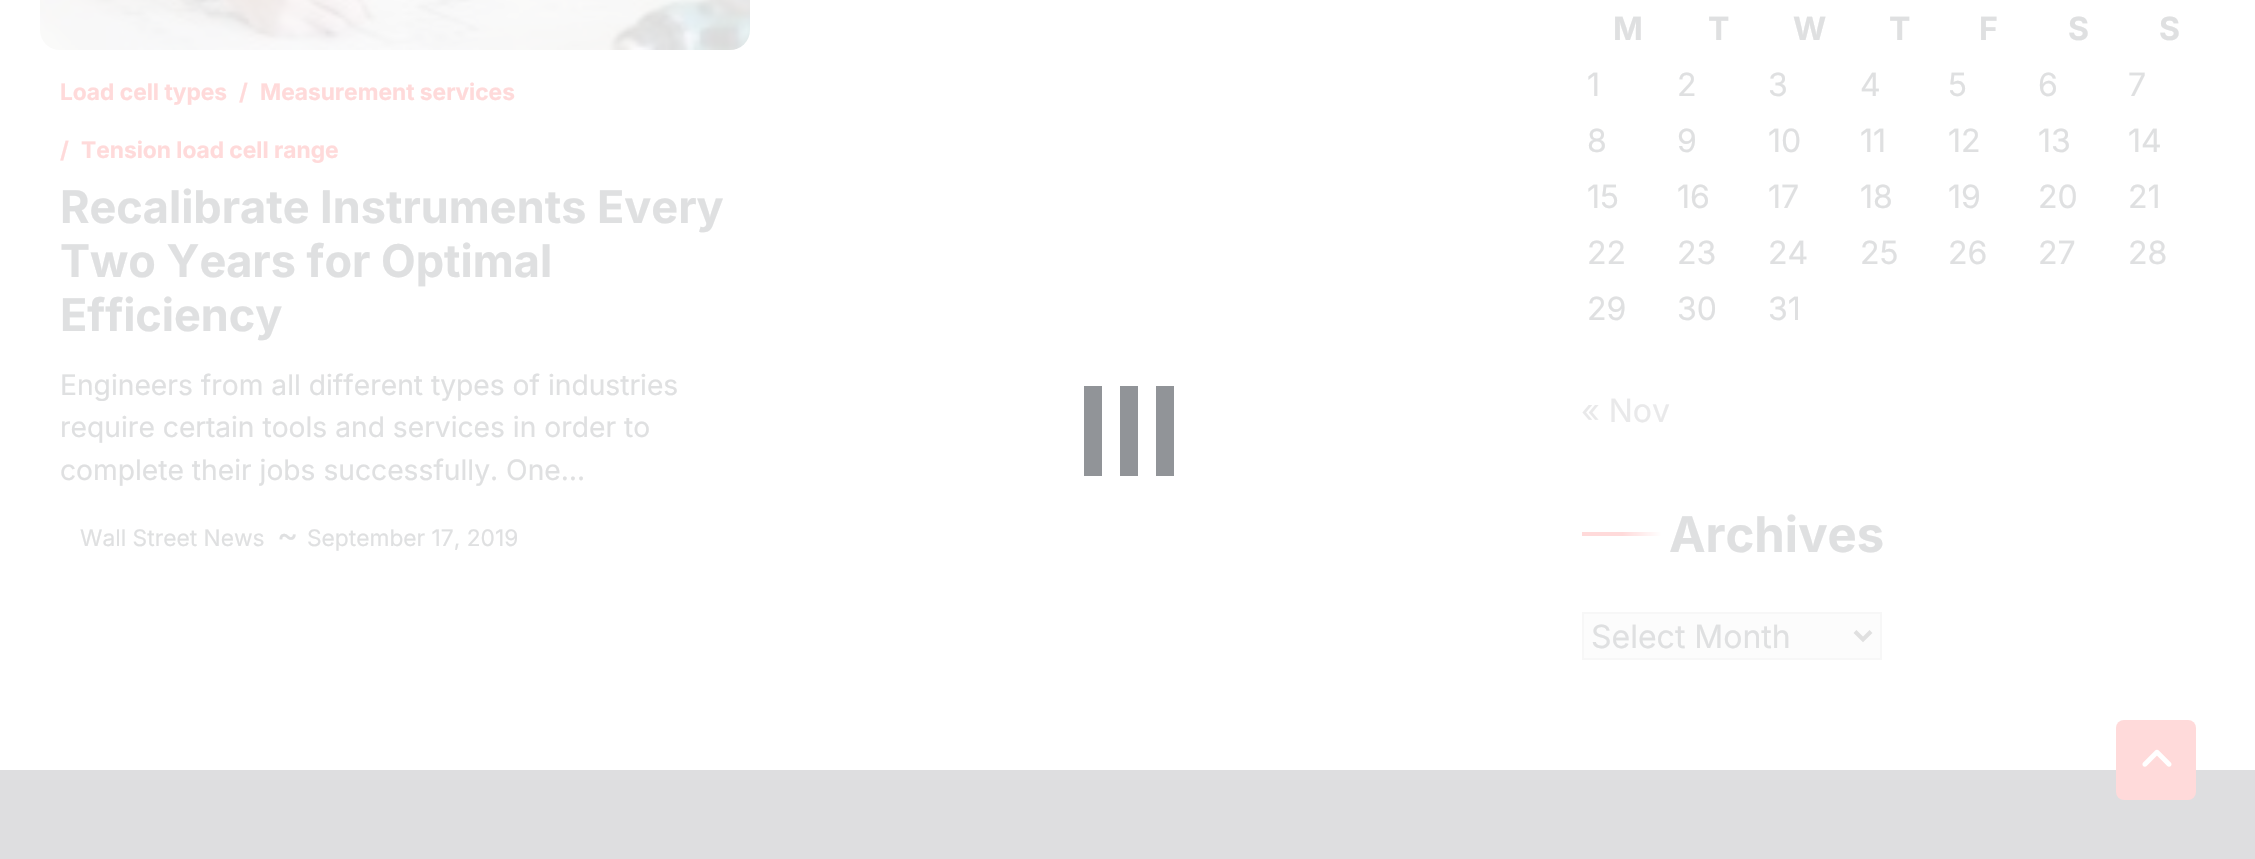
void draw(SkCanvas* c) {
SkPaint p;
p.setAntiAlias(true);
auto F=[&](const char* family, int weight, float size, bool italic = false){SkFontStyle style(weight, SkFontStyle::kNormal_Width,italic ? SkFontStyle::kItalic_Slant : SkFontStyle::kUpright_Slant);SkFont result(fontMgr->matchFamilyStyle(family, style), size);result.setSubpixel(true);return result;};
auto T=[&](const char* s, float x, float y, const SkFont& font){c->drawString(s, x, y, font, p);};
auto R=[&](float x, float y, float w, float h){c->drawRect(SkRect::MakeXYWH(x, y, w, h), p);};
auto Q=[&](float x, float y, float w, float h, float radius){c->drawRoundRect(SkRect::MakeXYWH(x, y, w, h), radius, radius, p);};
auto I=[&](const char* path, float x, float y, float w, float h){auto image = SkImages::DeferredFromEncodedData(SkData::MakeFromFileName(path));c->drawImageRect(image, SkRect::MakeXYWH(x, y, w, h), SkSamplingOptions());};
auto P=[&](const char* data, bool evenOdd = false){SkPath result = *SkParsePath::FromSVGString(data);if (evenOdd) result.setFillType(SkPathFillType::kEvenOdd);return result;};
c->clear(0xffffffff);
I("1.png",40,0,710,50);
auto f1 = F("Inter",700,22.75);
p.setColor(0xffffdada);
T("Load cell types",60,100,f1);
T("/",239,100,f1);
T("Measurement services",260,100,f1);
T("/",60,158,f1);
T("Tension load cell range",81,158,f1);
auto f2 = F("Inter",700,45);
p.setColor(0xffdfe0e1);
T("Recalibrate Instruments Every",60,223,f2);
T("Two Years for Optimal",60,277,f2);
T("Efficiency",60,331,f2);
auto f3 = F("Inter",400,28.2);
T("Engineers from all different types of industries",60,395,f3);
T("require certain tools and services in order to",60,437,f3);
T("complete their jobs successfully. One…",60,480,f3);
auto f4 = F("Inter",400,22.75);
T("Wall Street News",80,546,f4);
auto f5 = F("Inter",400,32);
T("~",277,546,f5);
T("September 17, 2019",307,546,f4);
auto f6 = F("Inter",700,32);
T("M",1613,40,f6);
T("T",1708,40,f6);
T("W",1793,40,f6);
T("T",1889,40,f6);
T("F",1979,40,f6);
T("S",2068,40,f6);
T("S",2159,40,f6);
T("1",1587,96,f5);
T("2",1677,96,f5);
T("3",1768,96,f5);
T("4",1860,96,f5);
T("5",1948,96,f5);
T("6",2038,96,f5);
T("7",2128,96,f5);
T("8",1587,152,f5);
T("9",1677,152,f5);
T("10",1768,152,f5);
T("11",1860,152,f5);
T("12",1948,152,f5);
T("13",2038,152,f5);
T("14",2128,152,f5);
T("15",1587,208,f5);
T("16",1677,208,f5);
T("17",1768,208,f5);
T("18",1860,208,f5);
T("19",1948,208,f5);
T("20",2038,208,f5);
T("21",2128,208,f5);
T("22",1587,264,f5);
T("23",1677,264,f5);
T("24",1768,264,f5);
T("25",1860,264,f5);
T("26",1948,264,f5);
T("27",2038,264,f5);
T("28",2128,264,f5);
T("29",1587,320,f5);
T("30",1677,320,f5);
T("31",1768,320,f5);
p.setColor(0xffe9e9ea);
T("« Nov",1581,422,f5);
{
const SkColor colors[] = {0xffffdada,0xffffdada,0xffffffff};
const float stops[] = {0,.5,1};
const SkPoint ends[] = {{1582,534}, {1662,534}};
p.setShader(SkGradientShader::MakeLinear(ends, colors, stops, 3, SkTileMode::kClamp));
p.setAlpha(255);
}
R(1582,532,80,4);
auto f7 = F("Inter",700,49);
p.setShader(nullptr);
p.setColor(0xffdfe0e1);
T("Archives",1669,552,f7);
p.setColor(0xfffcfcfc);
c->drawRect(SkRect::MakeXYWH(1583,613,298,46),p);
p.setStroke(true);
p.setStrokeWidth(2);
p.setColor(0xfff7f7f7);
c->drawRect(SkRect::MakeXYWH(1583,613,298,46),p);
p.setStrokeWidth(4);
p.setColor(0xffe0e0e0);
c->drawPath(P("M1855 631.5l8 8l8-8"),p);
p.setStroke(false);
p.setColor(0xffdfe0e1);
T("Select Month",1591,648,f5);
p.setColor(0xff919498);
R(1156,386,18,90);
R(1120,386,18,90);
R(1084,386,18,90);
p.setColor(0xffdedee0);
R(0,770,2255,89);
p.setColor(0xffffdada);
Q(2116,720,80,80,8);
I("2.png",2142,749,30,18);
}
